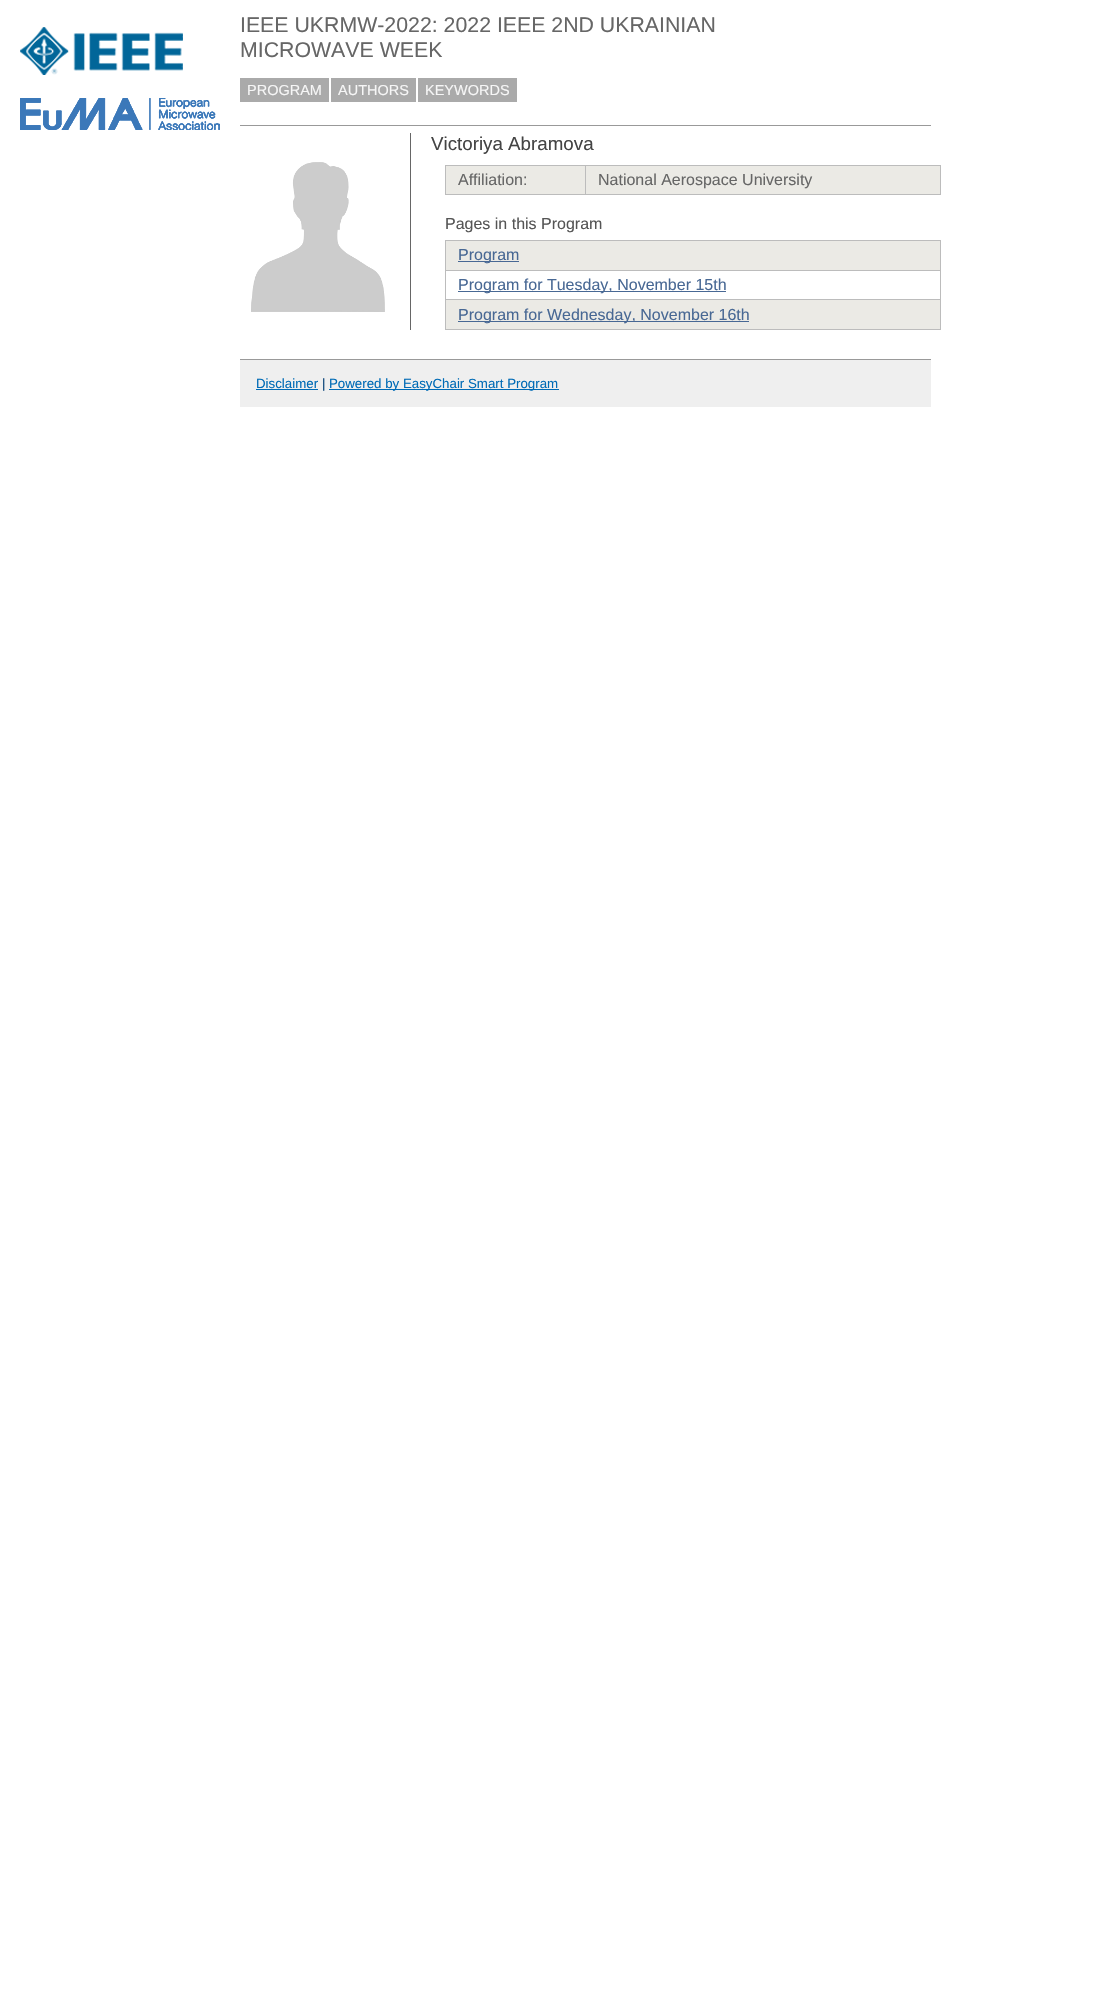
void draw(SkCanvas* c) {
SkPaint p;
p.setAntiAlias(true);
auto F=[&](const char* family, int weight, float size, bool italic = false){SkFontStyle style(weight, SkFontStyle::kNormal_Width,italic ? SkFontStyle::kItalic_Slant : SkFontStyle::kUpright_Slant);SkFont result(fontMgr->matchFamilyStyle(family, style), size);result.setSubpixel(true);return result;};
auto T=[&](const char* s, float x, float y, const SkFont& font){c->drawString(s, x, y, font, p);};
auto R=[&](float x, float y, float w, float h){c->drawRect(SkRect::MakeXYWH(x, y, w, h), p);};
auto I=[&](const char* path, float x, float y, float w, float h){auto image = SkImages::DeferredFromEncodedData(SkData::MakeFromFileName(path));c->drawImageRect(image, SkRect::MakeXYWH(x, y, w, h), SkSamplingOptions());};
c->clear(0xffffffff);
I("1.png",20,27,200,103);
auto f1 = F("Liberation Sans",400,21.3);
p.setColor(0xff666666);
T("IEEE UKRMW-2022: 2022 IEEE 2ND UKRAINIAN",240,32,f1);
T("MICROWAVE WEEK",240,57,f1);
p.setColor(0xffaaaaaa);
R(240,78,89,24);
auto f2 = F("Liberation Sans",400,14.5);
p.setColor(0xfff6f6f6);
T("PROGRAM",247,95,f2);
p.setColor(0xffaaaaaa);
R(331,78,85,24);
p.setColor(0xfff6f6f6);
T("AUTHORS",338,95,f2);
p.setColor(0xffaaaaaa);
R(418,78,99,24);
p.setColor(0xfff6f6f6);
T("KEYWORDS",425,95,f2);
p.setColor(0xff999999);
R(240,125,691,1);
I("2.png",251,162,134,150);
p.setColor(0xff666666);
R(410,133,1,197);
auto f3 = F("Liberation Sans",400,18.75);
p.setColor(0xff444444);
T("Victoriya Abramova",431,150,f3);
p.setColor(0xffebeae5);
R(446,166,494,28);
p.setColor(0xffbcbcbc);
R(445,165,496,1);
R(445,194,496,1);
R(445,165,1,30);
auto f4 = F("Liberation Sans",400,16);
p.setColor(0xff666666);
T("Affiliation:",458,185,f4);
p.setColor(0xffbcbcbc);
R(940,165,1,30);
R(585,165,1,30);
p.setColor(0xff666666);
T("National Aerospace University",598,185,f4);
p.setColor(0xff555555);
T("Pages in this Program",445,229,f4);
p.setColor(0xffebeae5);
R(446,241,494,29);
p.setColor(0xffbcbcbc);
R(445,240,496,1);
p.setColor(0xff486894);
R(458,261,61,1);
T("Program",458,260,f4);
p.setColor(0xffbcbcbc);
R(445,270,496,1);
R(445,299,496,1);
R(445,329,496,1);
R(940,299,1,31);
R(940,240,1,60);
R(445,299,1,31);
R(445,240,1,60);
p.setColor(0xff486894);
R(458,291,268,1);
T("Program for Tuesday, November 15th",458,290,f4);
p.setColor(0xffebeae5);
R(446,300,494,29);
p.setColor(0xff486894);
R(458,321,291,1);
T("Program for Wednesday, November 16th",458,320,f4);
p.setColor(0xffefefef);
R(240,360,691,47);
p.setColor(0xff999999);
R(240,359,691,1);
auto f5 = F("Liberation Sans",400,13.3);
p.setColor(0xff006bb6);
T("Disclaimer",256,388,f5);
R(256,389,62,1);
p.setColor(0xff043f76);
T("|",322,388,f5);
p.setColor(0xff006bb6);
R(329,389,230,1);
T("Powered by EasyChair Smart Program",329,388,f5);
}
